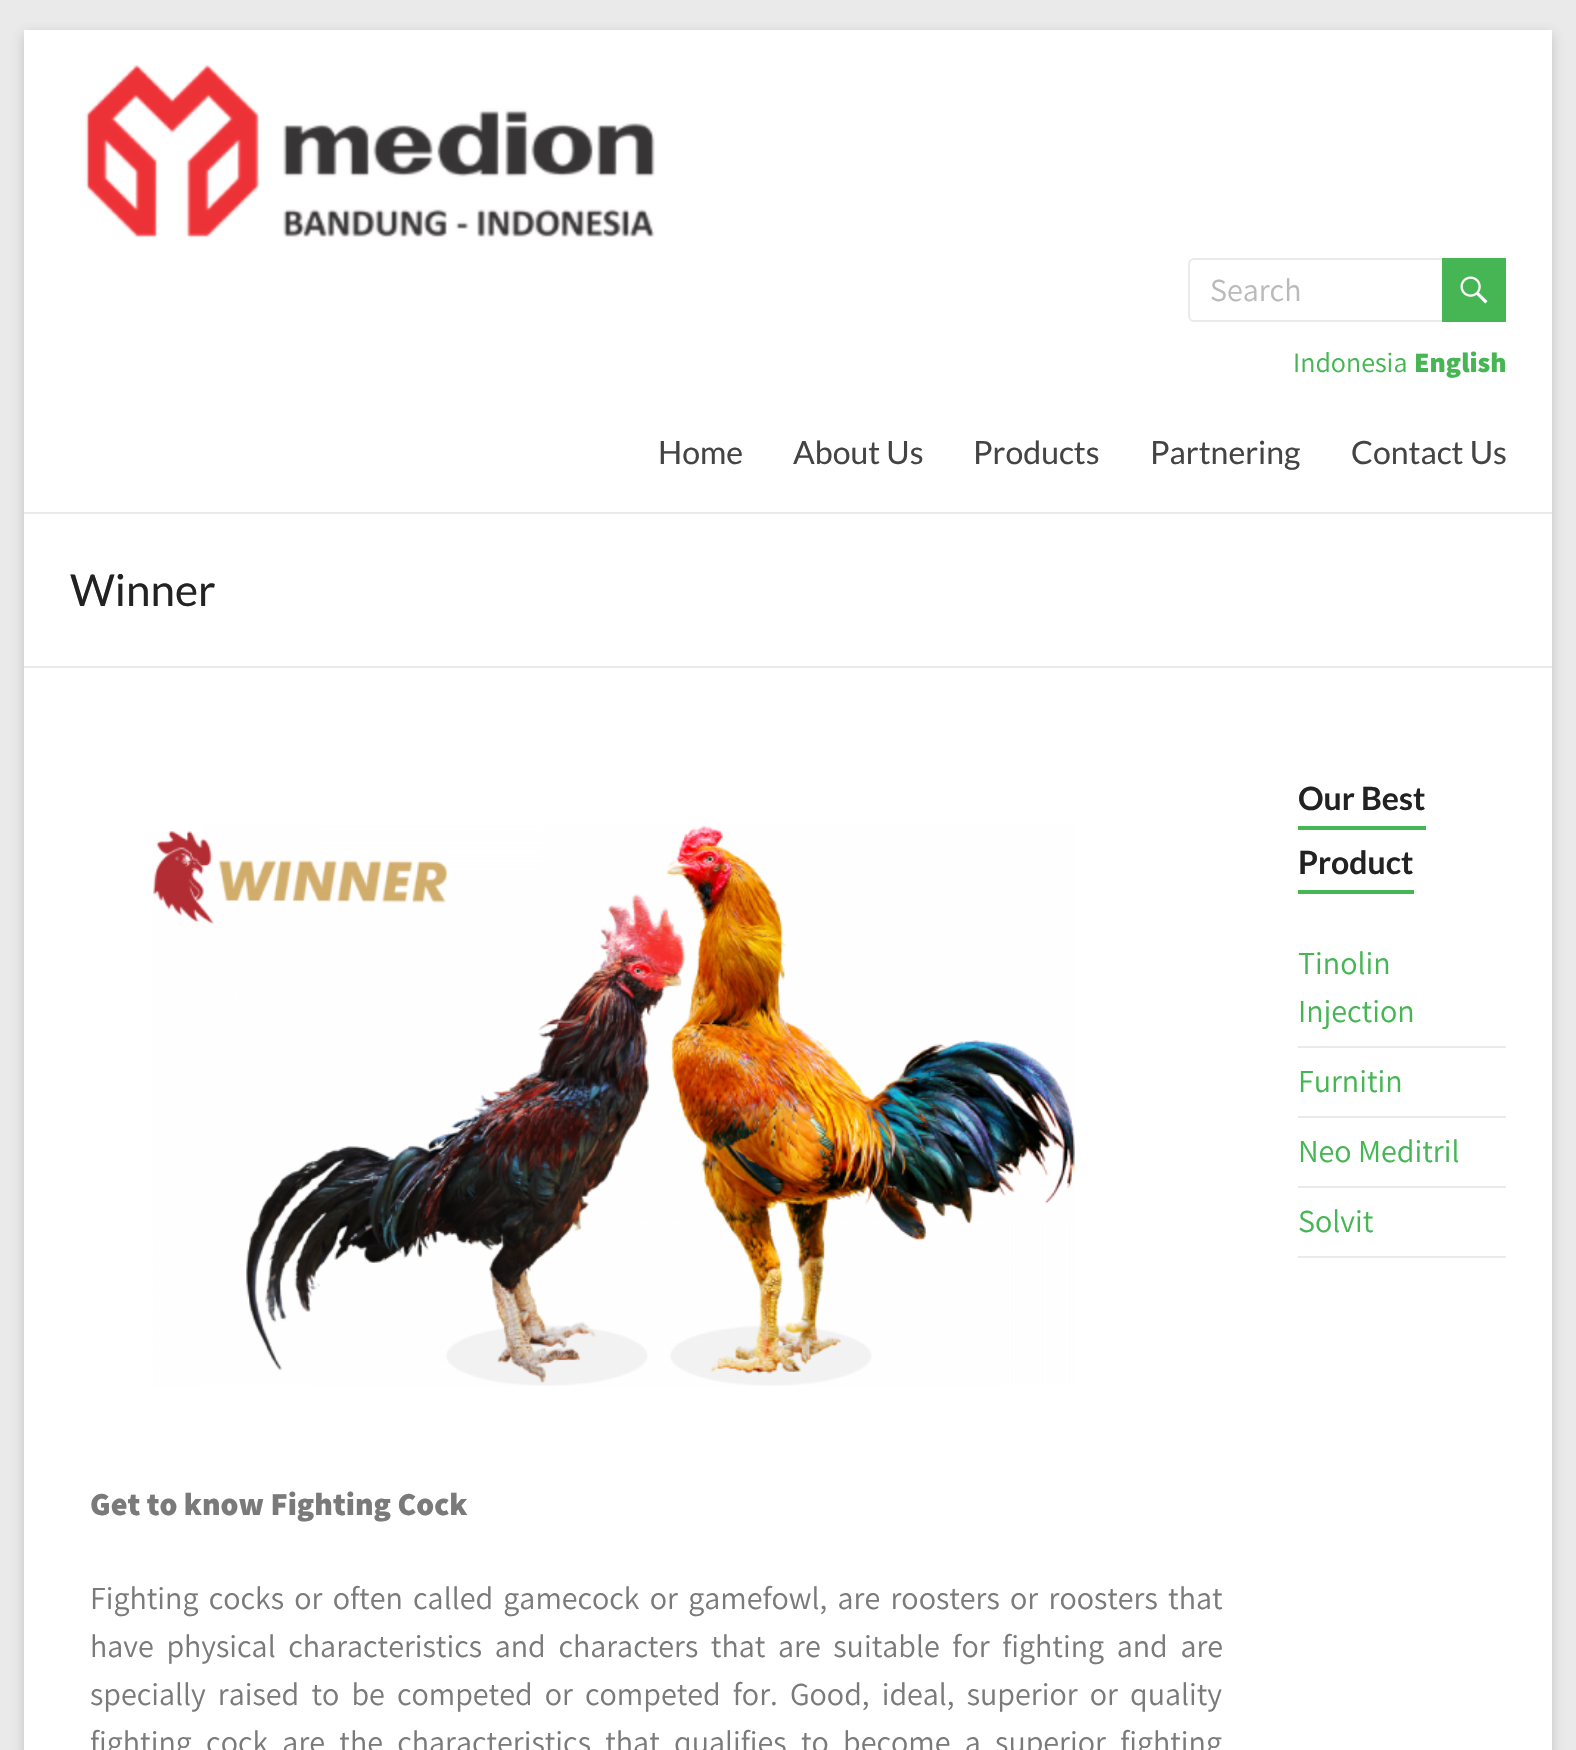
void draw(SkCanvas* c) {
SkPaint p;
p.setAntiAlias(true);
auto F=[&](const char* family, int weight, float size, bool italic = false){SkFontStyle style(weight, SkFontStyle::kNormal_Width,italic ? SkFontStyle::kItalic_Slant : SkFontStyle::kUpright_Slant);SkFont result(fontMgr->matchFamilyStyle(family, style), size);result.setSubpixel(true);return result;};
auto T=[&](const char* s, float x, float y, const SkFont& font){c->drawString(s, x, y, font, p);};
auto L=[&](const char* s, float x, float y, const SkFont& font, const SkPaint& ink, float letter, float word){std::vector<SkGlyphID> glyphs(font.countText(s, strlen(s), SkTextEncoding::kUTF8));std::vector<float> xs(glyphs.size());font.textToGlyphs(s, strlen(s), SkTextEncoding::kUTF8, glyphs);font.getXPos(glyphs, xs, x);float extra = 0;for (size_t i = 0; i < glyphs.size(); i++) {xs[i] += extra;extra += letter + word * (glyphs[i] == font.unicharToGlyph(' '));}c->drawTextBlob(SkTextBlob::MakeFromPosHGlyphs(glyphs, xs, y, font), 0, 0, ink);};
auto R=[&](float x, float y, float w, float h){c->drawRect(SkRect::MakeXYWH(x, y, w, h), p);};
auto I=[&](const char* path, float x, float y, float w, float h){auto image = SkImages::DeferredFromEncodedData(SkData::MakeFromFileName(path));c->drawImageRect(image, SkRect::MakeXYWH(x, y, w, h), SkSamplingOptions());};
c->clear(0xffeaeaea);
p.setColor(0x4d646464);
p.setMaskFilter(SkMaskFilter::MakeBlur(kNormal_SkBlurStyle, 6));
c->drawRect(SkRect::MakeXYWH(24,34,1528,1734),p);
p.setMaskFilter(nullptr);
p.setColor(0xffffffff);
R(24,30,1528,1720);
p.setColor(0xffeaeaea);
R(24,512,1528,2);
I("1.png",85,64,570,174);
p.setStroke(true);
p.setStrokeWidth(2);
c->drawRoundRect(SkRect::MakeXYWH(1189,259,258,62),5,5,p);
auto f1 = F("Assistant",400,32);
p.setStroke(false);
p.setColor(0xffbababa);
T("Search",1210,301,f1);
p.setColor(0xff45b653);
R(1442,258,64,64);
I("2.png",1460,276,28,28);
auto f2 = F("Assistant",400,28);
T("Indonesia",1293,372,f2);
auto f3 = F("Assistant",800,28);
T("English",1414,372,f3);
auto f4 = F("Lato",400,32);
p.setColor(0xff444444);
T("Home",658,464,f4);
T("About Us",793,464,f4);
T("Products",973,464,f4);
T("Partnering",1150,464,f4);
T("Contact Us",1351,464,f4);
p.setColor(0xffeaeaea);
R(24,666,1528,2);
auto f5 = F("Lato",400,44);
p.setColor(0xff222222);
T("Winner",70,606,f5);
auto f6 = F("Lato",700,32);
T("Our Best",1298,810,f6);
p.setColor(0xff45b653);
R(1298,826,128,4);
p.setColor(0xff222222);
T("Product",1298,874,f6);
p.setColor(0xff45b653);
R(1298,890,116,4);
p.setColor(0xffeaeaea);
R(1298,1046,208,2);
p.setColor(0xff45b653);
T("Tinolin",1298,974,f1);
T("Injection",1298,1022,f1);
p.setColor(0xffeaeaea);
R(1298,1116,208,2);
p.setColor(0xff45b653);
T("Furnitin",1298,1092,f1);
p.setColor(0xffeaeaea);
R(1298,1186,208,2);
p.setColor(0xff45b653);
T("Neo Meditril",1298,1162,f1);
p.setColor(0xffeaeaea);
R(1298,1256,208,2);
p.setColor(0xff45b653);
T("Solvit",1298,1232,f1);
I("3.png",153,825,922,561);
auto f7 = F("Assistant",800,32);
p.setColor(0xff7a7a7a);
T("Get to know Fighting Cock",90,1515,f7);
L("Fighting cocks or often called gamecock or gamefowl, are roosters or roosters that",90,1609,f1,p,0,3.9);
L("have physical characteristics and characters that are suitable for fighting and are",90,1657,f1,p,0,6.25);
L("specially raised to be competed or competed for. Good, ideal, superior or quality",90,1705,f1,p,0,5.75);
L("fighting cock are the characteristics that qualifies to become a superior fighting",90,1753,f1,p,0,7.9);
}
